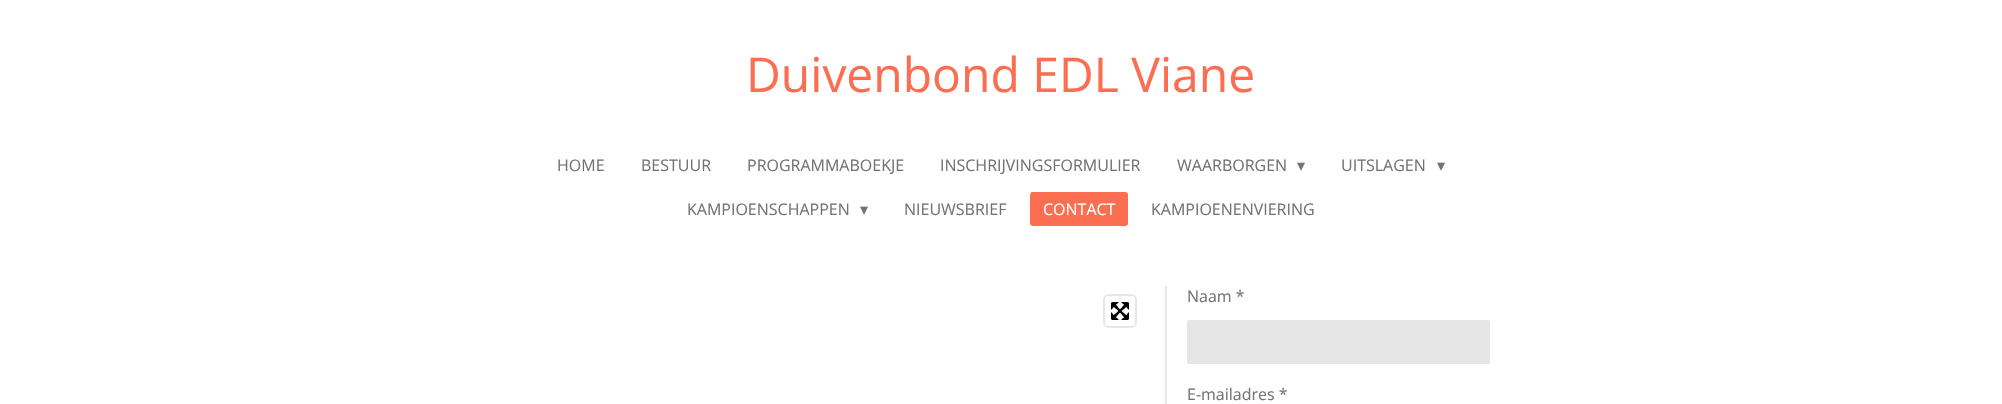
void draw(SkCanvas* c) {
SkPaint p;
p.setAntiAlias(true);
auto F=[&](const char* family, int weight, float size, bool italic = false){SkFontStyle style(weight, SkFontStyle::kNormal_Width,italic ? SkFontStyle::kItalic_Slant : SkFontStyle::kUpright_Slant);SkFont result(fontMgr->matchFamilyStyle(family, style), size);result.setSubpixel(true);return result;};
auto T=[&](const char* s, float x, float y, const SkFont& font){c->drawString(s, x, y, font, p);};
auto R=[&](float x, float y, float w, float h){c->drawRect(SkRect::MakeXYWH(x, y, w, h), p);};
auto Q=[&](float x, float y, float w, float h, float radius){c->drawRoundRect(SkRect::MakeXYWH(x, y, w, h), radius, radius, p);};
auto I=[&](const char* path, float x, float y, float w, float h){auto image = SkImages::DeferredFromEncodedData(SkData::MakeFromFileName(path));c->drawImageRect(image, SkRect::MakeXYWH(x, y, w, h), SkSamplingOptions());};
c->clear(0xffffffff);
auto f1 = F("Open Sans",400,48);
p.setColor(0xfffc6e51);
T("Duivenbond EDL Viane",746,92,f1);
auto f2 = F("Open Sans",400,16);
p.setColor(0xff737373);
T("HOME",557,171,f2);
T("BESTUUR",641,171,f2);
T("PROGRAMMABOEKJE",747,171,f2);
T("INSCHRIJVINGSFORMULIER",940,171,f2);
T("WAARBORGEN",1177,171,f2);
auto f3 = F("DejaVu Sans",400,16);
T("▾",1297,171,f3);
T("UITSLAGEN",1341,171,f2);
T("▾",1437,171,f3);
T("KAMPIOENSCHAPPEN",687,215,f2);
T("▾",860,215,f3);
T("NIEUWSBRIEF",904,215,f2);
p.setColor(0xfffc6e51);
Q(1030,192,98,34,3);
p.setColor(0xffffffff);
T("CONTACT",1043,215,f2);
p.setColor(0xff737373);
T("KAMPIOENENVIERING",1151,215,f2);
p.setStroke(true);
p.setStrokeWidth(2);
p.setColor(0xffe6e6e6);
c->drawRoundRect(SkRect::MakeXYWH(1104,295,32,32),5,5,p);
p.setStroke(false);
p.setColor(0xffffffff);
Q(1105,296,30,30,4);
I("1.png",1111,302,18,18);
p.setColor(0xffe6e6e6);
R(1165,286,2,118);
p.setColor(0xff737373);
T("Naam *",1187,302,f2);
p.setColor(0xffe6e6e6);
Q(1187,320,303,44,2);
p.setColor(0xff737373);
T("E-mailadres *",1187,400,f2);
}
